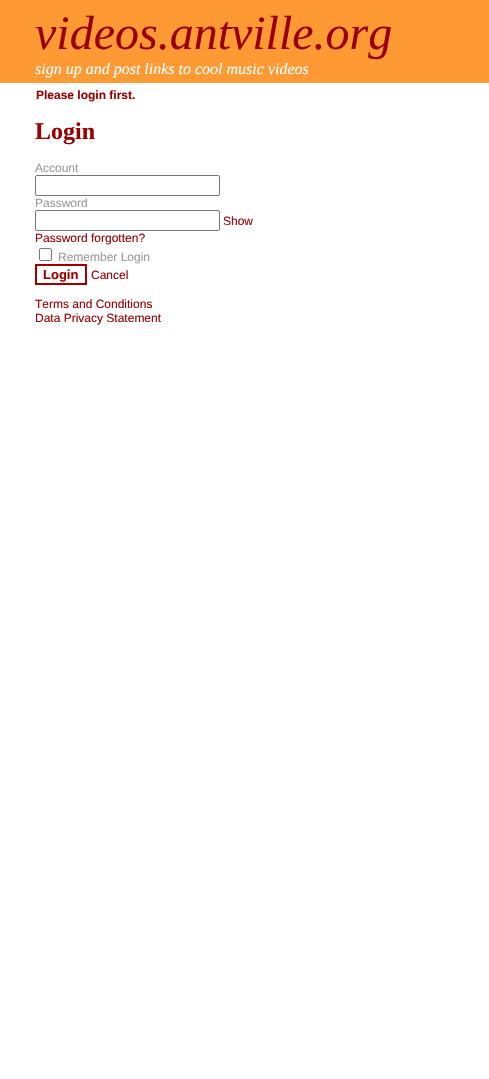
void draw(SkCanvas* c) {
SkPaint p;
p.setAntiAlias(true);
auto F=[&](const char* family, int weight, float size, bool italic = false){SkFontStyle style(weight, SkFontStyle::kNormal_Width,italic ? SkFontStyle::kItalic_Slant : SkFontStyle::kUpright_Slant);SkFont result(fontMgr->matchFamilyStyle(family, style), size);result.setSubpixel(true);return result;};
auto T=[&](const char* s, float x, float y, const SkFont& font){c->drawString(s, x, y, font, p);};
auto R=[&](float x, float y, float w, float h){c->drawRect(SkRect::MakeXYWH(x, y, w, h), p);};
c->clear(0xffffffff);
p.setColor(0xffff9933);
R(0,0,489,83);
auto f1 = F("Liberation Serif",400,48,true);
p.setColor(0xff990000);
T("videos.antville.org",35,49,f1);
auto f2 = F("Liberation Serif",400,16,true);
p.setColor(0xffffffff);
T("sign up and post links to cool music videos",35,74,f2);
auto f3 = F("Liberation Sans",700,12);
p.setColor(0xff990000);
T("Please login first.",36,99,f3);
auto f4 = F("Liberation Serif",700,24);
T("Login",35,139,f4);
auto f5 = F("Liberation Sans",400,12);
p.setColor(0xff999999);
T("Account",35,172,f5);
p.setStroke(true);
p.setStrokeWidth(1);
p.setColor(0xff767676);
c->drawRoundRect(SkRect::MakeXYWH(35.5,175.5,184,20),1.5,1.5,p);
p.setStroke(false);
p.setColor(0xff999999);
T("Password",35,207,f5);
p.setStroke(true);
p.setColor(0xff767676);
c->drawRoundRect(SkRect::MakeXYWH(35.5,210.5,184,20),1.5,1.5,p);
p.setStroke(false);
p.setColor(0xff990000);
T("Show",223,225,f5);
T("Password forgotten?",35,242,f5);
p.setStroke(true);
p.setColor(0xff767676);
c->drawRoundRect(SkRect::MakeXYWH(39.5,248.5,12,12),1.5,1.5,p);
p.setStroke(false);
p.setColor(0xff999999);
T("Remember Login",58,261,f5);
p.setStroke(true);
p.setStrokeWidth(2);
p.setColor(0xff990000);
c->drawRect(SkRect::MakeXYWH(36,265,50,19),p);
auto f6 = F("Liberation Sans",700,13);
p.setStroke(false);
T("Login",43,279,f6);
T("Cancel",91,279,f5);
T("Terms and Conditions",35,308,f5);
T("Data Privacy Statement",35,322,f5);
}
